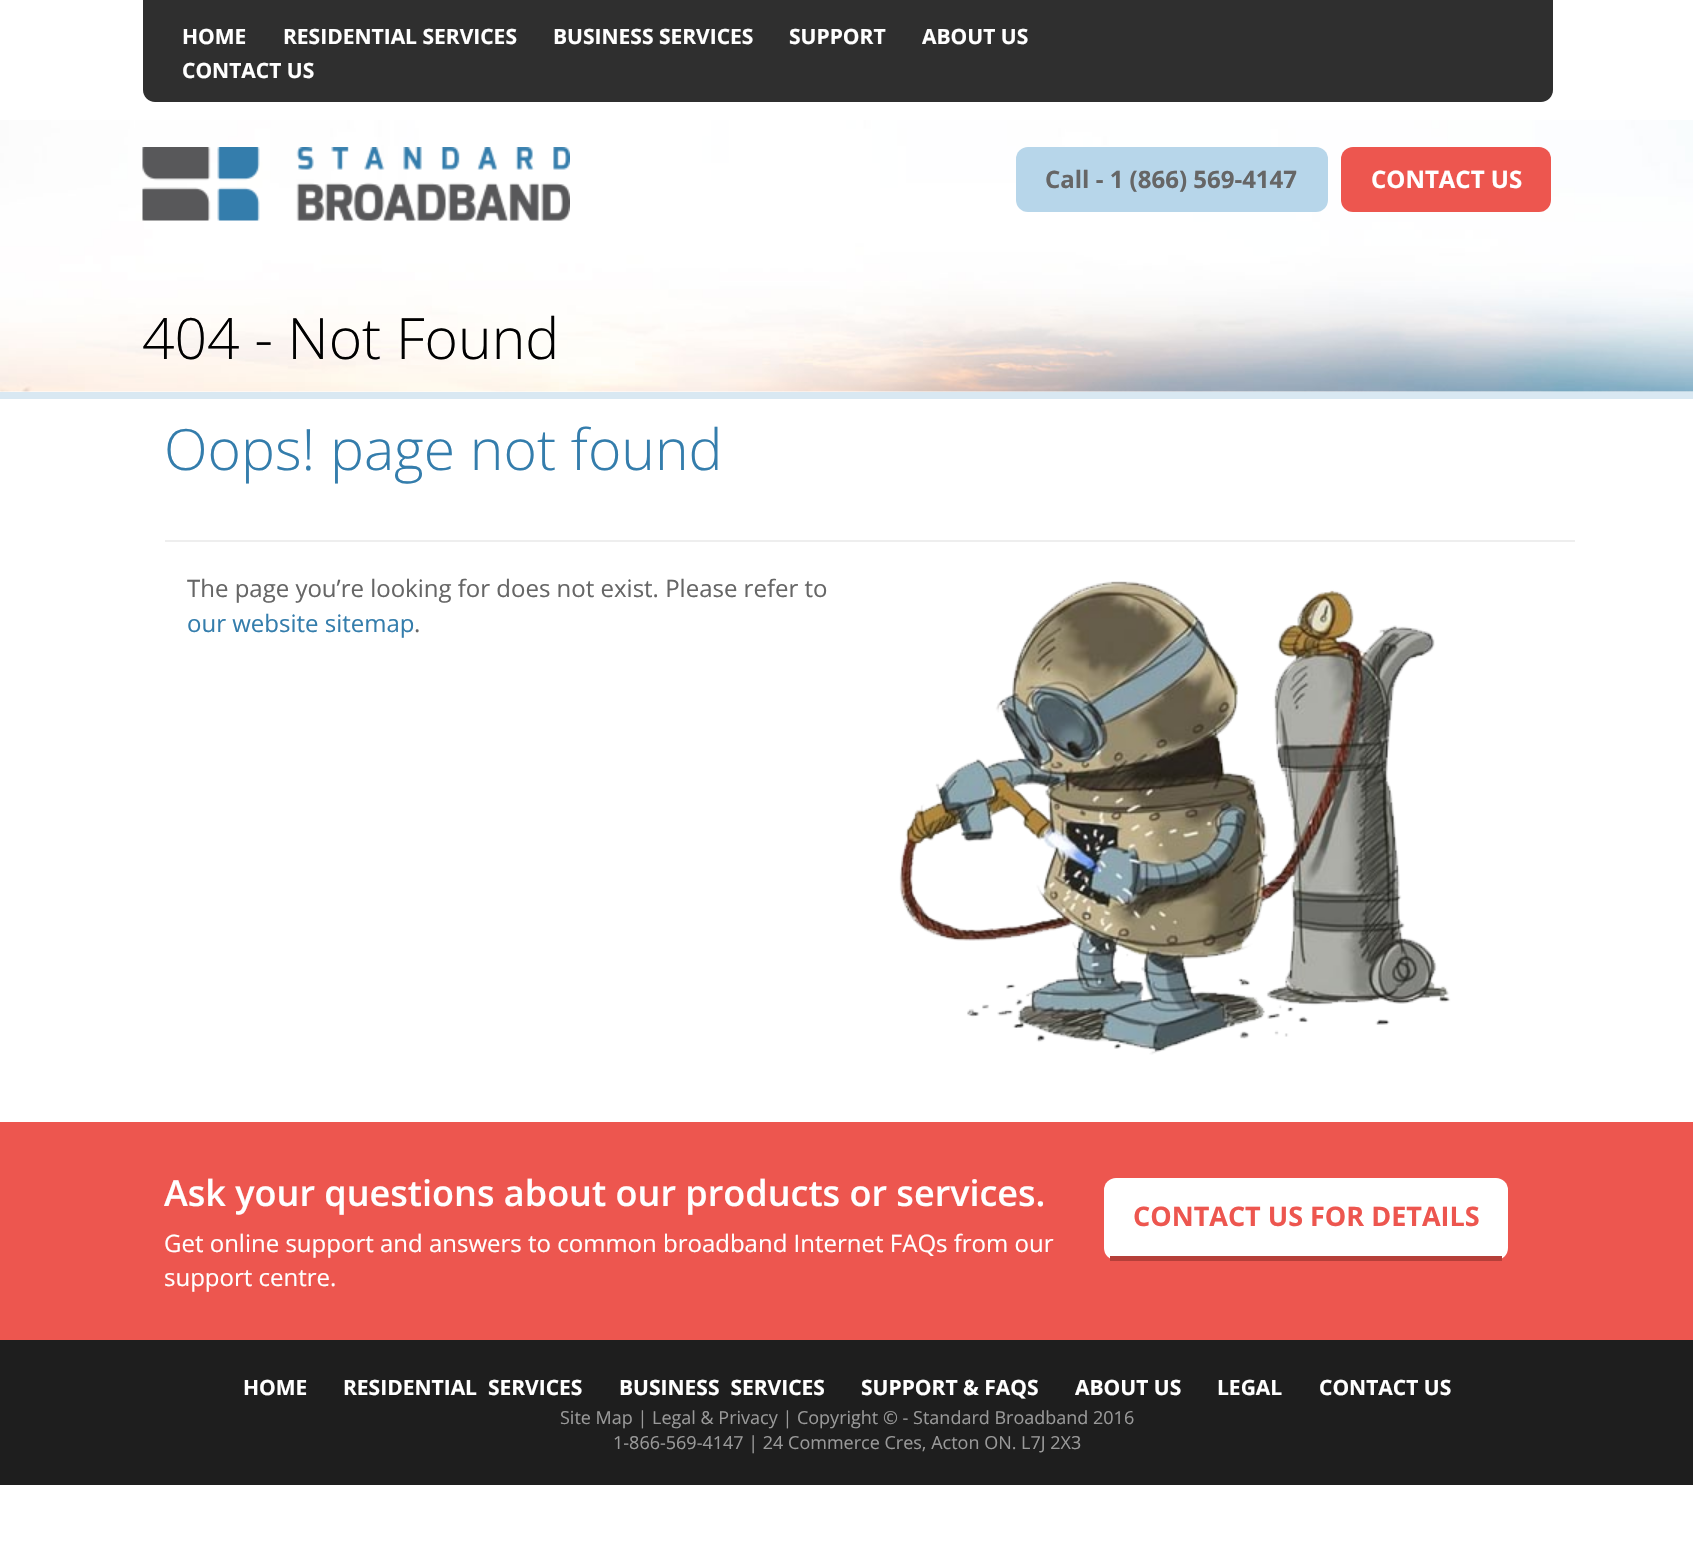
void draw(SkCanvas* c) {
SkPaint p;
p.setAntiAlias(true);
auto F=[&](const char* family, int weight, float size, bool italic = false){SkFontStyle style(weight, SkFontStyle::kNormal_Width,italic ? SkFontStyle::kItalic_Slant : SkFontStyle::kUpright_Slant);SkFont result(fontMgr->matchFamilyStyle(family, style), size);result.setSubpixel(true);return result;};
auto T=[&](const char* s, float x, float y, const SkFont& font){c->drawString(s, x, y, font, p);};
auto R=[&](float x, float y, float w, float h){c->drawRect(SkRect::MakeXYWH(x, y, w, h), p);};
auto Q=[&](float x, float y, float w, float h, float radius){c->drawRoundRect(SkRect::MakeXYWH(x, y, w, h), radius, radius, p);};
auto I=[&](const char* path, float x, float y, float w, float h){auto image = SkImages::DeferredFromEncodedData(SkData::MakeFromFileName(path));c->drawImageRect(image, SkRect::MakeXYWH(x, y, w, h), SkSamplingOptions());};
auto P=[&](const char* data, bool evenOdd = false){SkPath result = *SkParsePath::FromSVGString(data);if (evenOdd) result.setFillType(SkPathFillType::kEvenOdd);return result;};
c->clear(0xffffffff);
I("1.png",0,120,1693,272);
p.setColor(0xffd9e8f2);
R(0,392,1693,7);
p.setColor(0xff2f2f2f);
c->drawPath(P("M143 0h1410v90c0 6.5-5.5 12-12 12h-1386c-6.5 0-12-5.5-12-12z"),p);
auto f1 = F("Open Sans",700,21);
p.setColor(0xffffffff);
T("HOME",182,44,f1);
T("RESIDENTIAL SERVICES",283,44,f1);
T("BUSINESS SERVICES",553,44,f1);
T("SUPPORT",789,44,f1);
T("ABOUT US",922,44,f1);
T("CONTACT US",182,78,f1);
I("2.png",142,147,428,74);
p.setColor(0xffb7d6ea);
Q(1016,147,312,65,12);
auto f2 = F("Open Sans",700,24);
p.setColor(0xff666666);
T("Call - 1 (866) 569-4147",1045,188,f2);
p.setColor(0xffed564f);
Q(1341,147,210,65,12);
p.setColor(0xffffffff);
T("CONTACT US",1371,188,f2);
auto f3 = F("Open Sans",300,57);
p.setColor(0xff000000);
T("404 - Not Found",142,359,f3);
p.setColor(0xffeeeeee);
R(165,540,1410,2);
p.setColor(0xff347dac);
T("Oops! page not found",164,470,f3);
auto f4 = F("Open Sans",400,24);
p.setColor(0xff666666);
T("The page you’re looking for does not exist. Please refer to",187,597,f4);
p.setColor(0xff347dac);
T("our website sitemap",187,632,f4);
p.setColor(0xff666666);
T(".",414,632,f4);
I("3.png",899,581,552,474);
p.setColor(0xffed564f);
R(0,1122,1693,218);
auto f5 = F("Open Sans",600,36);
p.setColor(0xffffffff);
T("Ask your questions about our products or services.",164,1206,f5);
T("Get online support and answers to common broadband Internet FAQs from our",164,1252,f4);
T("support centre.",164,1286,f4);
Q(1104,1178,404,82,12);
p.setColor(0xffb53f39);
R(1110,1256,392,5);
auto f6 = F("Open Sans",700,27);
p.setColor(0xffed564f);
T("CONTACT US FOR DETAILS",1133,1226,f6);
p.setColor(0xff1e1e1e);
R(0,1340,1693,145);
p.setColor(0xffffffff);
T("HOME",243,1395,f1);
T("RESIDENTIAL  SERVICES",343,1395,f1);
T("BUSINESS  SERVICES",619,1395,f1);
T("SUPPORT & FAQS",861,1395,f1);
T("ABOUT US",1075,1395,f1);
T("LEGAL",1217,1395,f1);
T("CONTACT US",1319,1395,f1);
auto f7 = F("Open Sans",400,18);
p.setColor(0xff999999);
T("Site Map | Legal & Privacy | Copyright © - Standard Broadband 2016",560,1424,f7);
T("1-866-569-4147 | 24 Commerce Cres, Acton ON. L7J 2X3",613,1449,f7);
}
